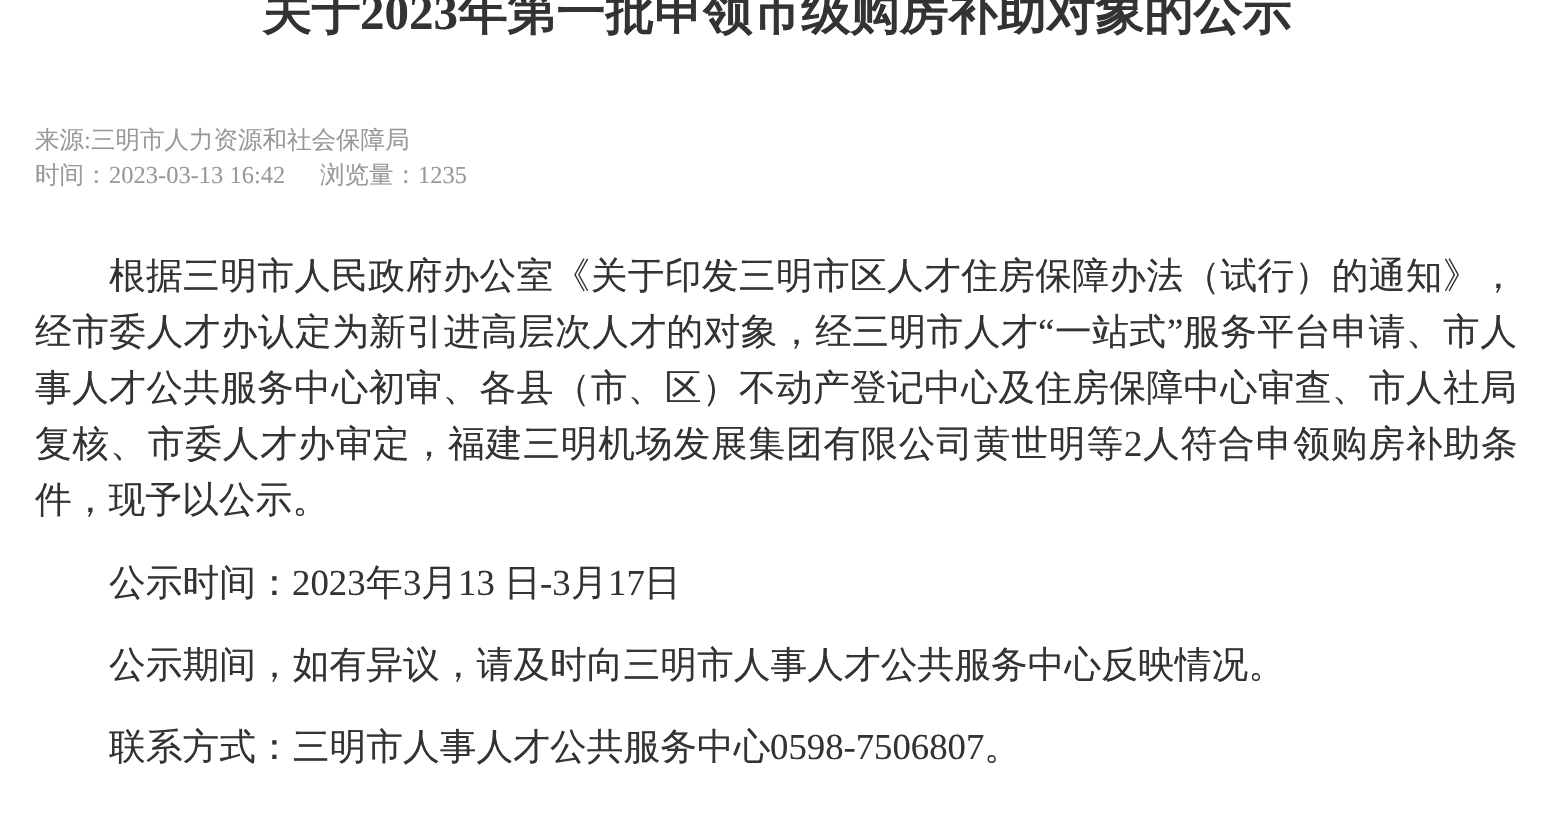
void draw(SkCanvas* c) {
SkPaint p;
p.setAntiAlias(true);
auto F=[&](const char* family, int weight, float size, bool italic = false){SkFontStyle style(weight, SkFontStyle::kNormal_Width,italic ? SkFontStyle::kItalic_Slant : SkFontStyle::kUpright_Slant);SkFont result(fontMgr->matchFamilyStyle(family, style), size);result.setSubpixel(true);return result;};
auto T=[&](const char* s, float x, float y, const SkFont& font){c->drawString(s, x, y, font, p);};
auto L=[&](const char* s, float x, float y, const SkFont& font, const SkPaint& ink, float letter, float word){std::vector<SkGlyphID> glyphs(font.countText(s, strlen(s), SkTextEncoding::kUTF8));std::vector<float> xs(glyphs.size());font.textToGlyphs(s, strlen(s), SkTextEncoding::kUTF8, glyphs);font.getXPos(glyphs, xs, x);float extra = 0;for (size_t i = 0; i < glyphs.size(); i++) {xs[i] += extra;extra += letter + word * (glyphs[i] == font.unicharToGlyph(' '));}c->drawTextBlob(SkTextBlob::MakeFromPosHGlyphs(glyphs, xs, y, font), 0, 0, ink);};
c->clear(0xffffffff);
auto f1 = F("WenQuanYi Zen Hei",700,49);
p.setColor(0xff333333);
T("关于",262,29,f1);
auto f2 = F("Liberation Serif",700,49);
T("2023",360,29,f2);
T("年第一批申领市级购房补助对象的公示",458,29,f1);
auto f3 = F("WenQuanYi Zen Hei",500,24.5);
p.setColor(0xff999999);
T("来源",35,148,f3);
auto f4 = F("Liberation Serif",400,24.5);
T(":",84,148,f4);
T("三明市人力资源和社会保障局",91,148,f3);
T("时间：",35,183,f3);
T("2023-03-13 16:42",109,183,f4);
T("浏览量：",320,183,f3);
T("1235",418,183,f4);
auto f5 = F("WenQuanYi Zen Hei",500,36.75);
p.setColor(0xff333333);
L("根据三明市人民政府办公室《关于印发三明市区人才住房保障办法（试行）的通知》，",109,288,f5,p,.3,0);
L("经市委人才办认定为新引进高层次人才的对象，经三明市人才",35,344,f5,p,.4,0);
auto f6 = F("Liberation Serif",400,36.75);
L("“",1038,344,f6,p,.4,0);
L("一站式",1055,344,f5,p,.4,0);
L("”",1167,344,f6,p,.4,0);
L("服务平台申请、市人",1183,344,f5,p,.4,0);
L("事人才公共服务中心初审、各县（市、区）不动产登记中心及住房保障中心审查、市人社局",35,400,f5,p,.3,0);
L("复核、市委人才办审定，福建三明机场发展集团有限公司黄世明等",35,456,f5,p,.8,0);
L("2",1124,456,f6,p,.8,0);
L("人符合申领购房补助条",1143,456,f5,p,.8,0);
T("件，现予以公示。",35,512,f5);
T("公示时间：",109,595,f5);
T("2023",292,595,f6);
T("年",366,595,f5);
T("3",403,595,f6);
T("月",421,595,f5);
T("13",458,595,f6);
T("日",504,595,f5);
T("-3",540,595,f6);
T("月",571,595,f5);
T("17",608,595,f6);
T("日",644,595,f5);
T("公示期间，如有异议，请及时向三明市人事人才公共服务中心反映情况。",109,677,f5);
T("联系方式：三明市人事人才公共服务中心",109,759,f5);
T("0598-7506807",770,759,f6);
T("。",984,759,f5);
}
